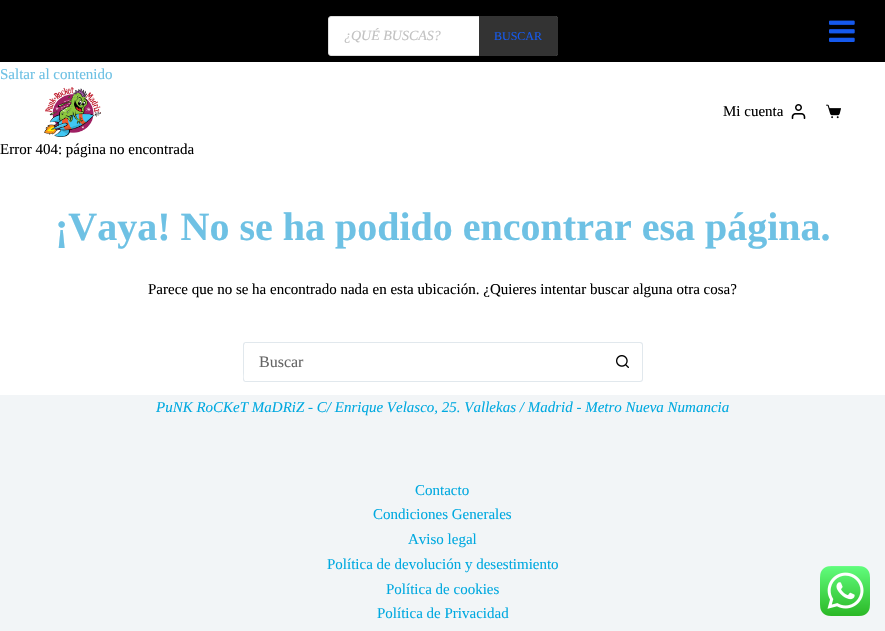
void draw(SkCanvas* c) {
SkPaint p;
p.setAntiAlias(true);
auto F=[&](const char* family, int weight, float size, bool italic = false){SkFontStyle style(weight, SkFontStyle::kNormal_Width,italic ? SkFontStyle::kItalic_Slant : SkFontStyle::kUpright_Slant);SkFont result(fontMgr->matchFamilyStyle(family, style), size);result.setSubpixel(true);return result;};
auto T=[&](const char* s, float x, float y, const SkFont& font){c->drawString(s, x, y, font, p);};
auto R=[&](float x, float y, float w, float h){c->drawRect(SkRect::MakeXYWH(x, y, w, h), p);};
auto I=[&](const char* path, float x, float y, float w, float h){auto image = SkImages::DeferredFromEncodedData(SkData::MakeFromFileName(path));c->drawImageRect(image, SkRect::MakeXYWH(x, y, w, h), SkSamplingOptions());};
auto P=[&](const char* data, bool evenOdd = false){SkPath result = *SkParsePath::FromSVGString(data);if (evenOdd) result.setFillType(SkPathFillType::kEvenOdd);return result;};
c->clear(0xffffffff);
p.setColor(0xff000000);
R(0,0,885,62);
p.setColor(0xffffffff);
c->drawRoundRect(SkRect::MakeXYWH(328.5,16.5,229,39),2.5,2.5,p);
p.setStroke(true);
p.setStrokeWidth(1);
p.setColor(0xffdddddd);
c->drawRoundRect(SkRect::MakeXYWH(328.5,16.5,229,39),2.5,2.5,p);
auto f1 = F("Liberation Serif",400,14,true);
p.setStroke(false);
p.setColor(0xffc2c2c2);
T("¿QUÉ BUSCAS?",344,40,f1);
p.setColor(0xff333333);
c->drawPath(P("M479 16h77c1 0 2 1 2 2v36c0 1-1 2-2 2h-77z"),p);
auto f2 = F("Liberation Serif",400,12);
p.setColor(0xff1559ed);
T("BUSCAR",494,40,f2);
I("1.png",829,20,26,22);
auto f3 = F("Liberation Serif",400,15);
p.setColor(0xff6ec1e4);
T("Saltar al contenido",0,79,f3);
I("2.png",44,87,57,50);
p.setColor(0xff000000);
T("Mi cuenta",723,116,f3);
I("3.png",791,104,15,15);
I("4.png",826,104,15,15);
T("Error 404: página no encontrada",0,154,f3);
auto f4 = F("Liberation Serif",700,40);
p.setColor(0xff6ec1e4);
T("¡Vaya! No se ha podido encontrar esa página.",55,240,f4);
p.setColor(0xff000000);
T("Parece que no se ha encontrado nada en esta ubicación. ¿Quieres intentar buscar alguna otra cosa?",148,294,f3);
p.setColor(0xffe1e8ed);
c->drawPath(P("M246 342h357v40h-357c-2 0-3-1-3-3v-34c0-2 1-3 3-3zm0 1h357v38h-358c-2-2-1-7-1-8v-28l1-2z",true),p);
auto f5 = F("Liberation Serif",400,16);
p.setColor(0xff666666);
T("Buscar",259,367,f5);
p.setColor(0xffe1e8ed);
c->drawPath(P("M603 342h37c2 0 3 1 3 3v34c0 2-1 3-3 3h-37zm0 1h37c1 0 2 1 2 2v34c0 1-1 2-2 2h-37z",true),p);
I("5.png",616,355,13,13);
p.setColor(0xfff2f5f7);
R(0,395,885,236);
auto f6 = F("Liberation Serif",400,15,true);
p.setColor(0xff00a9e0);
T("PuNK RoCKeT MaDRiZ - C/ Enrique Velasco, 25. Vallekas / Madrid - Metro Nueva Numancia",156,412,f6);
T("Contacto",415,495,f3);
T("Condiciones Generales",373,519,f3);
T("Aviso legal",408,544,f3);
T("Política de devolución y desestimiento",327,569,f3);
T("Política de cookies",386,594,f3);
T("Política de Privacidad",377,618,f3);
I("6.png",820,566,50,50);
}
